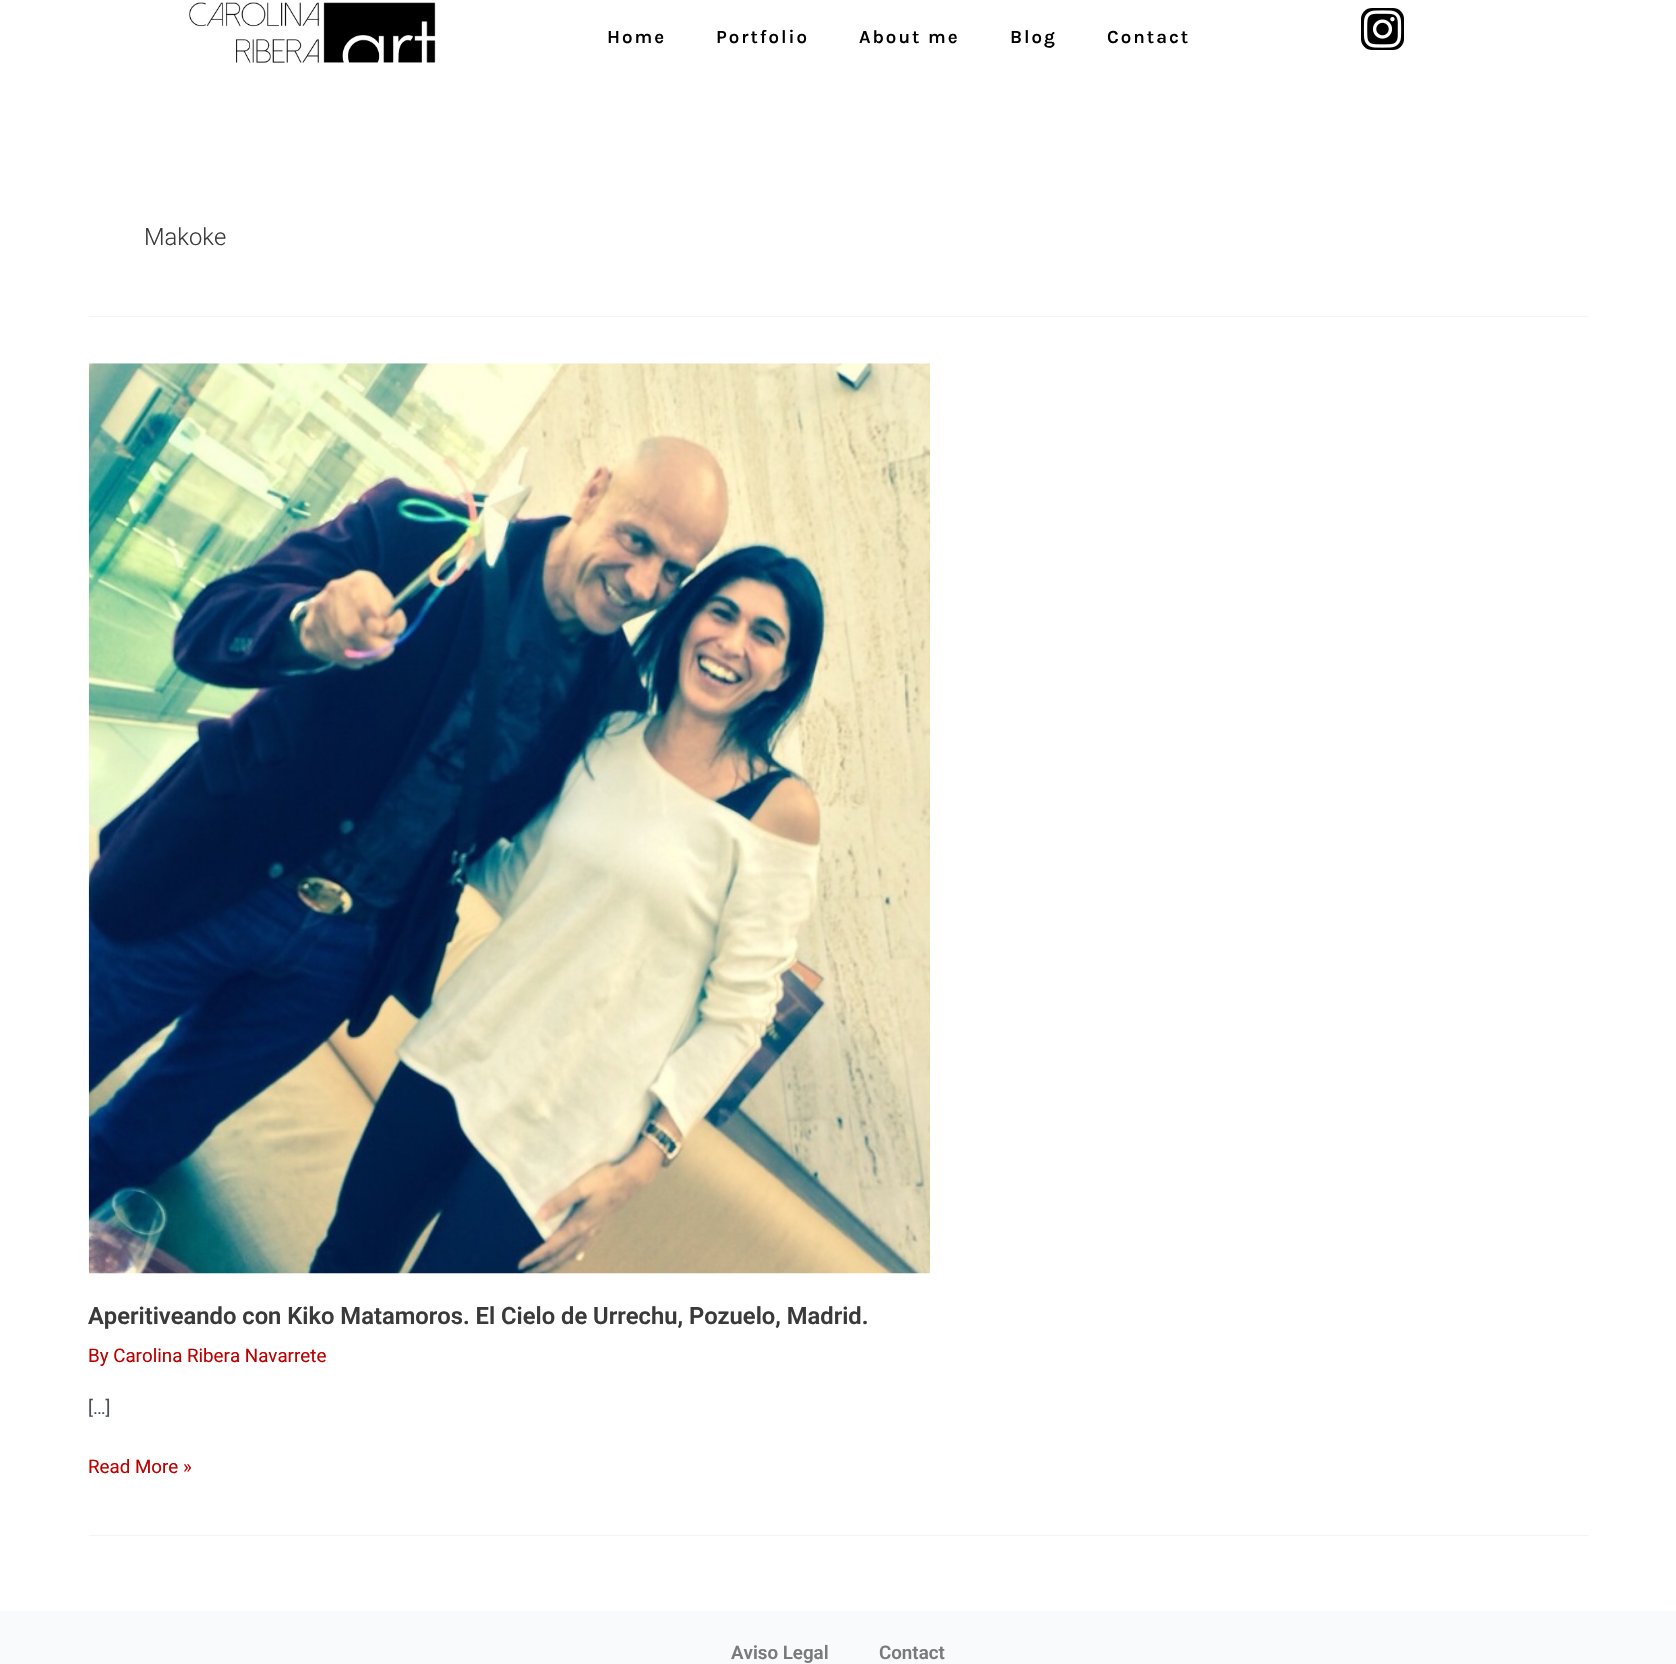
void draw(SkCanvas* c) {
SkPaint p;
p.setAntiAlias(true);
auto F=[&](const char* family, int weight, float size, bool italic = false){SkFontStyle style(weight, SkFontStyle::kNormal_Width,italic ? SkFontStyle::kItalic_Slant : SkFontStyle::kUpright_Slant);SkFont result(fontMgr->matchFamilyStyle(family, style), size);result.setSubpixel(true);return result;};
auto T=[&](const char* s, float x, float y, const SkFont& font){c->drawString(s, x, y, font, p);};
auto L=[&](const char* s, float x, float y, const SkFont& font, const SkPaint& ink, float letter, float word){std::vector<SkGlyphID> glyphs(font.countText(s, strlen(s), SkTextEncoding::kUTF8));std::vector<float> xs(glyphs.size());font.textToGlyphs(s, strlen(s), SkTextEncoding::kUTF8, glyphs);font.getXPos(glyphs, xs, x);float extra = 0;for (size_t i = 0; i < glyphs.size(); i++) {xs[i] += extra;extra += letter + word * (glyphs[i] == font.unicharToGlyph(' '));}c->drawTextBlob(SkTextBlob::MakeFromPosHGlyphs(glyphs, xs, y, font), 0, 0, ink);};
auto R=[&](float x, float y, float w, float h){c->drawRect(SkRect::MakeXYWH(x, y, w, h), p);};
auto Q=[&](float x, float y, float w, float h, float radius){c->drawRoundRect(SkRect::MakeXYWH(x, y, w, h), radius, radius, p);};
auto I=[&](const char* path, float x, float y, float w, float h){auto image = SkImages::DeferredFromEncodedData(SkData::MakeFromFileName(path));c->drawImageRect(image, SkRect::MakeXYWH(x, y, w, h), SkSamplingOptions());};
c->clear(0xffffffff);
I("1.png",189,2,247,61);
auto f1 = F("Karla",600,18.75);
p.setColor(0xff000000);
L("Home",607,43,f1,p,2,0);
L("Portfolio",716,43,f1,p,2,0);
L("About me",859,43,f1,p,2,0);
L("Blog",1010,43,f1,p,2,0);
L("Contact",1107,43,f1,p,2,0);
Q(1361,8,43,42,11);
I("2.png",1363,10,39,38);
p.setColor(0xfff2f5f7);
R(89,316,1500,1);
auto f2 = F("Roboto",300,23.75);
p.setColor(0xff3a3a3a);
T("Makoke",144,245,f2);
p.setColor(0xfff2f5f7);
R(89,1535,1500,1);
I("3.png",88,363,842,911);
auto f3 = F("Roboto",600,23.75);
p.setColor(0xff3a3a3a);
T("Aperitiveando con Kiko Matamoros. El Cielo de Urrechu, Pozuelo, Madrid.",88,1324,f3);
auto f4 = F("Roboto",400,18.75);
p.setColor(0xffba0202);
T("By Carolina Ribera Navarrete",88,1362,f4);
p.setColor(0xff4b4f58);
T("[…]",88,1414,f4);
p.setColor(0xffba0202);
T("Read More »",88,1473,f4);
p.setColor(0xfff9fafb);
R(0,1611,1676,53);
auto f5 = F("Roboto",600,18.75);
p.setColor(0xff7a7a7a);
T("Aviso Legal",731,1659,f5);
T("Contact",879,1659,f5);
}
